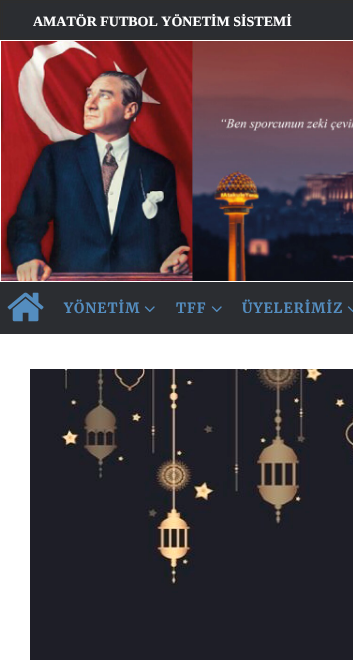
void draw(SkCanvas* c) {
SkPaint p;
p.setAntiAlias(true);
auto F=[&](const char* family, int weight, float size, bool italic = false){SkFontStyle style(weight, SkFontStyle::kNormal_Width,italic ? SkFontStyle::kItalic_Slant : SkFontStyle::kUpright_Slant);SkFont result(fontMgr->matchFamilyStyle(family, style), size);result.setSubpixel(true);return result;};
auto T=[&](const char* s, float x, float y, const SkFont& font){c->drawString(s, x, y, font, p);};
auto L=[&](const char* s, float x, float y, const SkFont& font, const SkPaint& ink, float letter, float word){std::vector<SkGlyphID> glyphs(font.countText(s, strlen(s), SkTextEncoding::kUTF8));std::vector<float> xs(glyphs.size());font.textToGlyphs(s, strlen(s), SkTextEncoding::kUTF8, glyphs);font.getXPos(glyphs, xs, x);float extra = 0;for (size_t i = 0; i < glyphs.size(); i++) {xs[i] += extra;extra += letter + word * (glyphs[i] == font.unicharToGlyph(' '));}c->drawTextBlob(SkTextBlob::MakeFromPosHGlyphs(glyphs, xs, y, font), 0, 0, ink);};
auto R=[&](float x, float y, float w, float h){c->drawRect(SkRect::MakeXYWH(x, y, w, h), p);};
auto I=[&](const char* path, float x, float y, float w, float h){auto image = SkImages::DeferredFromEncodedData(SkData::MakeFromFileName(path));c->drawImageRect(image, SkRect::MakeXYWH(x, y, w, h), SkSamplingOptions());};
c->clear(0xffffffff);
p.setColor(0xff2b2d31);
c->drawRect(SkRect::MakeXYWH(.5,.5,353,39),p);
p.setStroke(true);
p.setStrokeWidth(1);
p.setColor(0xff2d2d2d);
c->drawRect(SkRect::MakeXYWH(.5,.5,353,39),p);
c->drawRect(SkRect::MakeXYWH(2.5,2.5,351,35),p);
auto f1 = F("Liberation Serif",700,14);
p.setStroke(false);
p.setColor(0xffffffff);
T("AMATÖR FUTBOL YÖNETİM SİSTEMİ",33,26,f1);
I("1.png",1,41,352,240);
p.setColor(0xff2b2d31);
R(0,282,353,52);
I("2.png",7,292,37,30);
auto f2 = F("Merriweather",700,14);
p.setColor(0xff548dbf);
L("YÖNETİM",64,313,f2,p,1,0);
I("3.png",144,306,11,6);
L("TFF",176,313,f2,p,1,0);
I("3.png",211,306,11,6);
L("ÜYELERİMİZ",242,313,f2,p,1,0);
I("4.png",347,306,6,6);
I("5.png",30,369,323,291);
}
